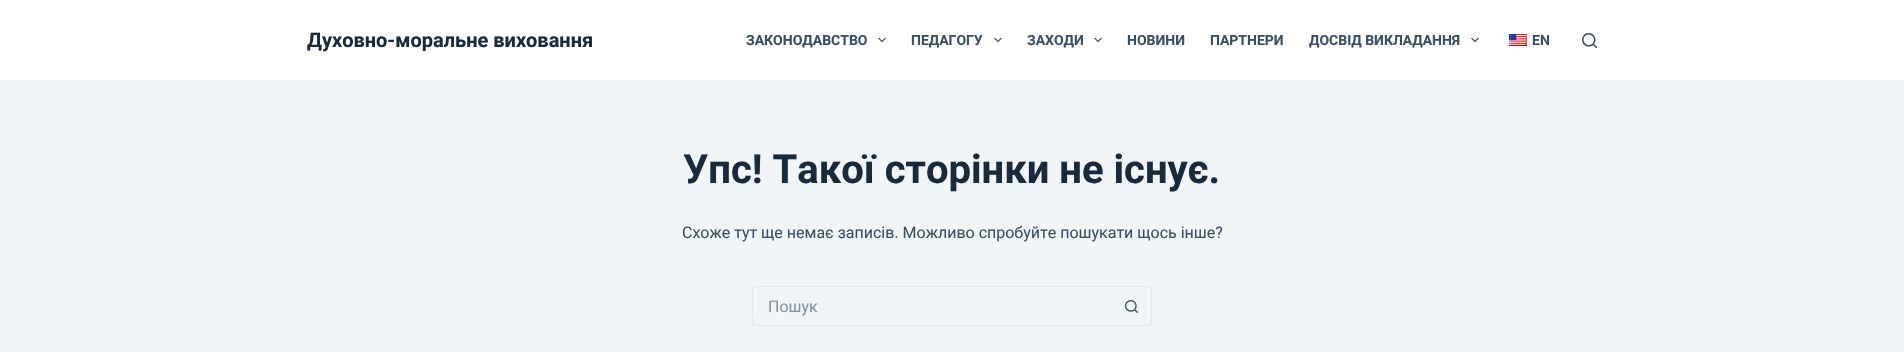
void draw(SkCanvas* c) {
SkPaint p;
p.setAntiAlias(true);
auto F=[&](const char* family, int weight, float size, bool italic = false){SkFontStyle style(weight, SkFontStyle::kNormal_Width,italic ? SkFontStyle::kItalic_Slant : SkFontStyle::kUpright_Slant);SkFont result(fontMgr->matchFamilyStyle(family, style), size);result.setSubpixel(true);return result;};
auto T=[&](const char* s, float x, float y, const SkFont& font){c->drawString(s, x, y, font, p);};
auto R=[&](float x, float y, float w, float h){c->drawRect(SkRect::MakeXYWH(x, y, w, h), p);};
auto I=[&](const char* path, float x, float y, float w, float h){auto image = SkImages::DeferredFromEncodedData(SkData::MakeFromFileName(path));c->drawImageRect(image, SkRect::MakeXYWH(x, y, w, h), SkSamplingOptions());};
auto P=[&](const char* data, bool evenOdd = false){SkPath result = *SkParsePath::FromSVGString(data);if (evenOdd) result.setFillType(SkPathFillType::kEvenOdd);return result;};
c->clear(0xfff2f5f7);
p.setColor(0xffffffff);
R(0,0,1904,80);
auto f1 = F("Roboto",700,20);
p.setColor(0xff192a3d);
T("Духовно-моральне виховання",307,47,f1);
auto f2 = F("Roboto",700,14);
p.setColor(0xff3a4f66);
T("ЗАКОНОДАВСТВО",746,45,f2);
I("1.png",878,37,8,6);
T("ПЕДАГОГУ",911,45,f2);
I("1.png",994,37,8,6);
T("ЗАХОДИ",1027,45,f2);
I("1.png",1094,37,8,6);
T("НОВИНИ",1127,45,f2);
T("ПАРТНЕРИ",1210,45,f2);
T("ДОСВІД ВИКЛАДАННЯ",1309,45,f2);
I("1.png",1471,37,8,6);
I("2.png",1509,34,18,12);
T("EN",1532,45,f2);
I("3.png",1582,33,15,15);
auto f3 = F("Roboto",700,40);
p.setColor(0xff192a3d);
T("Упс! Такої сторінки не існує.",683,183,f3);
auto f4 = F("Roboto",400,16);
p.setColor(0xff3a4f66);
T("Схоже тут ще немає записів. Можливо спробуйте пошукати щось інше?",682,238,f4);
p.setColor(0xffe1e8ed);
c->drawPath(P("M755 286h357v40h-357c-2 0-3-1-3-3v-34c0-2 1-3 3-3zm0 1h357v38h-358c-2-2-1-7-1-8v-28l1-2z",true),p);
p.setColor(0xff8491a0);
T("Пошук",768,312,f4);
p.setColor(0xffe1e8ed);
c->drawPath(P("M1112 286h37c2 0 3 1 3 3v34c0 2-1 3-3 3h-37zm0 1h37c1 0 2 1 2 2v34c0 1-1 2-2 2h-37z",true),p);
I("4.png",1125,300,13,13);
}
